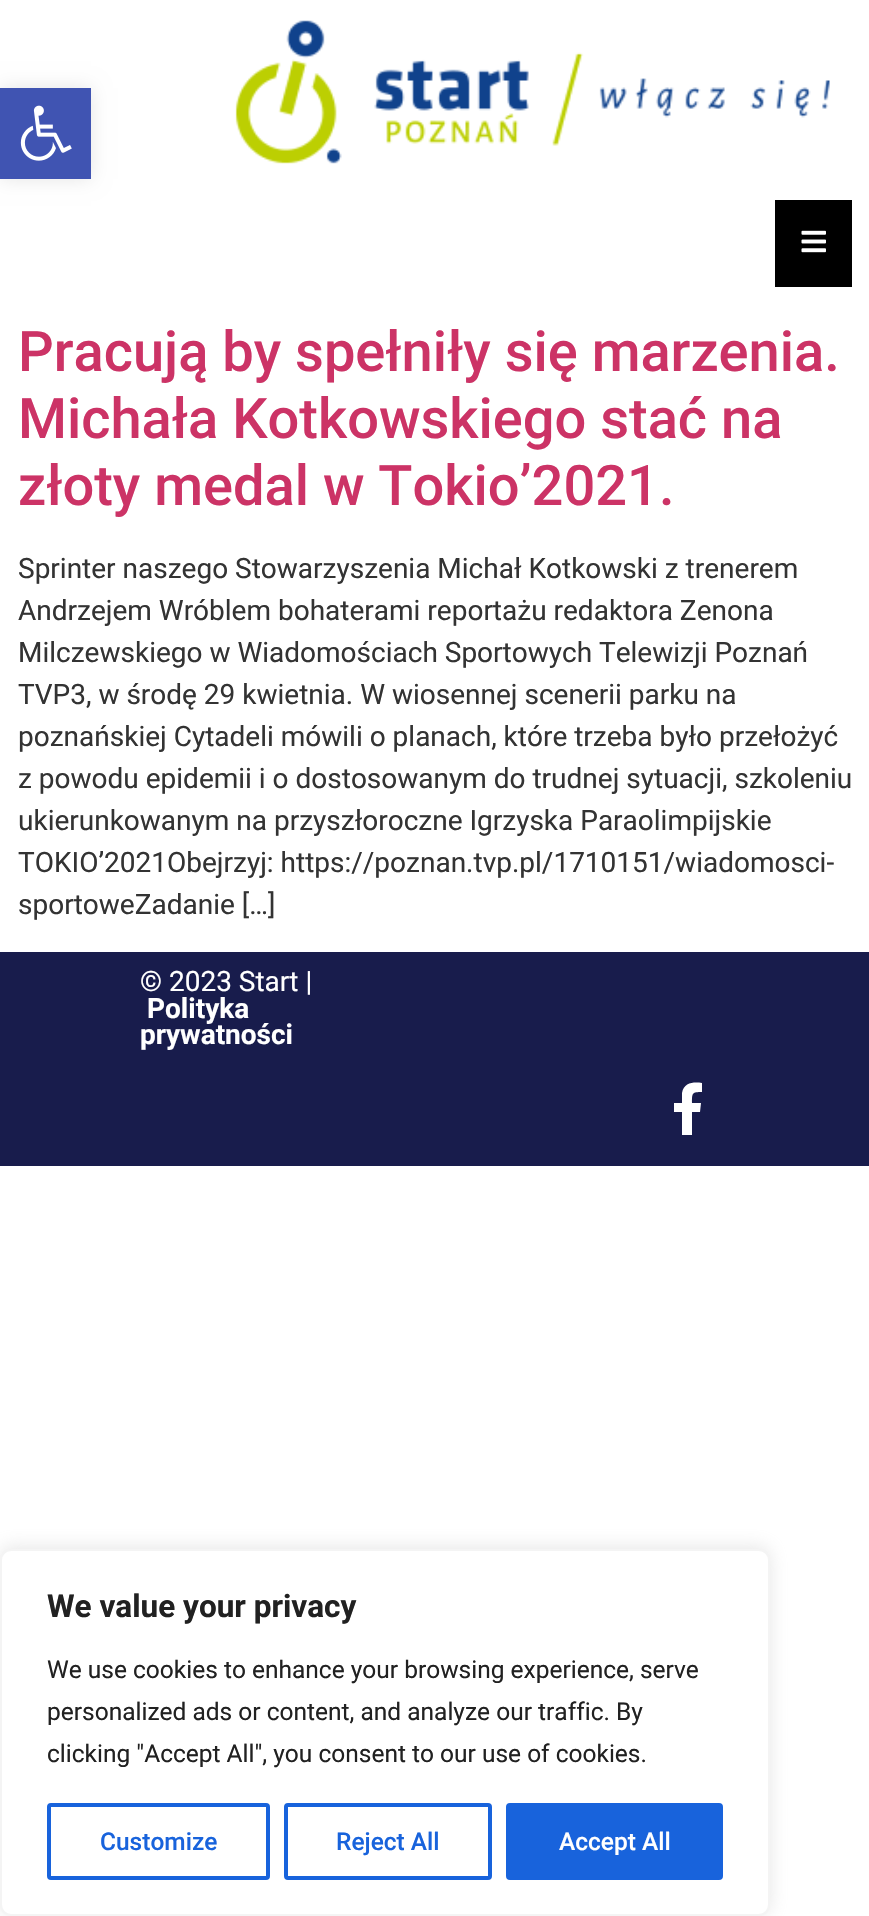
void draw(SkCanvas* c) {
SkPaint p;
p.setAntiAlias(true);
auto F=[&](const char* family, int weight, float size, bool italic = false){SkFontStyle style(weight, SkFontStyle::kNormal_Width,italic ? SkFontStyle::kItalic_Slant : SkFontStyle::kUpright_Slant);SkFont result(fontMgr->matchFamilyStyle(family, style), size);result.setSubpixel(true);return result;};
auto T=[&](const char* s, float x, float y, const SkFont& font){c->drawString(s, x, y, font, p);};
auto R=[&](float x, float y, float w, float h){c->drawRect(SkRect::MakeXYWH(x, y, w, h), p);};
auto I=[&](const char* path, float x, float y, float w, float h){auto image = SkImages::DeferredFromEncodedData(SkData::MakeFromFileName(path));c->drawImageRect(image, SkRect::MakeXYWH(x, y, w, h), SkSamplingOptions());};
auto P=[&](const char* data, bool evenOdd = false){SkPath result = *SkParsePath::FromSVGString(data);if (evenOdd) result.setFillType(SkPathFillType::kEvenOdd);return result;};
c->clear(0xffffffff);
p.setColor(0x1a000000);
p.setMaskFilter(SkMaskFilter::MakeBlur(kNormal_SkBlurStyle, 9));
c->drawRect(SkRect::MakeXYWH(0,88,91,91),p);
p.setMaskFilter(nullptr);
p.setColor(0xff4054b2);
R(0,88,91,91);
I("1.png",20,105,52,56);
I("2.png",235,20,595,144);
p.setColor(0xff000000);
R(775,200,77,87);
I("3.png",801,230,25,23);
auto f1 = F("Roboto",500,56);
p.setColor(0xffcc3366);
T("Pracują by spełniły się marzenia.",18,371,f1);
T("Michała Kotkowskiego stać na",18,438,f1);
T("złoty medal w Tokio’2021.",18,505,f1);
auto f2 = F("Roboto",400,28);
p.setColor(0xff333333);
T("Sprinter naszego Stowarzyszenia Michał Kotkowski z trenerem",18,578,f2);
T("Andrzejem Wróblem bohaterami reportażu redaktora Zenona",18,620,f2);
T("Milczewskiego w Wiadomościach Sportowych Telewizji Poznań",18,662,f2);
T("TVP3, w środę 29 kwietnia. W wiosennej scenerii parku na",18,704,f2);
T("poznańskiej Cytadeli mówili o planach, które trzeba było przełożyć",18,746,f2);
T("z powodu epidemii i o dostosowanym do trudnej sytuacji, szkoleniu",18,788,f2);
T("ukierunkowanym na przyszłoroczne Igrzyska Paraolimpijskie",18,830,f2);
T("TOKIO’2021Obejrzyj: https://poznan.tvp.pl/1710151/wiadomosci-",18,872,f2);
T("sportoweZadanie […]",18,914,f2);
p.setColor(0xff181c4c);
R(0,952,869,214);
p.setColor(0xffffffff);
T("© 2023 Start |",140,991,f2);
auto f3 = F("Roboto",700,28);
T("Polityka",147,1018,f3);
T("prywatności",140,1044,f3);
c->drawPath(P("M700 1112h-8v23h-10v-23h-8v-9h8v-10c2-11 12-11 20-10v9c-10 0-10 1-10 11h9z"),p);
p.setColor(0x4dacabab);
p.setMaskFilter(SkMaskFilter::MakeBlur(kNormal_SkBlurStyle, 9));
c->drawRoundRect(SkRect::MakeXYWH(0,1547,770,368),11,11,p);
p.setMaskFilter(nullptr);
p.setColor(0xffffffff);
c->drawRoundRect(SkRect::MakeXYWH(1,1550,768,365),10,10,p);
p.setStroke(true);
p.setStrokeWidth(2);
p.setColor(0xfff4f4f4);
c->drawRoundRect(SkRect::MakeXYWH(1,1550,768,365),10,10,p);
auto f4 = F("Roboto",700,31.5);
p.setStroke(false);
p.setColor(0xff212121);
T("We value your privacy",47,1617,f4);
auto f5 = F("Roboto",400,24.5);
T("We use cookies to enhance your browsing experience, serve",47,1678,f5);
T("personalized ads or content, and analyze our traffic. By",47,1720,f5);
T("clicking \"Accept All\", you consent to our use of cookies.",47,1762,f5);
p.setStroke(true);
p.setStrokeWidth(4);
p.setColor(0xff1863dc);
c->drawRoundRect(SkRect::MakeXYWH(49,1805,219,73),2,2,p);
auto f6 = F("Roboto",500,24.5);
p.setStroke(false);
T("Customize",100,1850,f6);
p.setStroke(true);
c->drawRoundRect(SkRect::MakeXYWH(286,1805,204,73),2,2,p);
p.setStroke(false);
T("Reject All",336,1850,f6);
c->drawRoundRect(SkRect::MakeXYWH(508,1805,213,73),2,2,p);
p.setStroke(true);
c->drawRoundRect(SkRect::MakeXYWH(508,1805,213,73),2,2,p);
p.setStroke(false);
p.setColor(0xffffffff);
T("Accept All",559,1850,f6);
}
